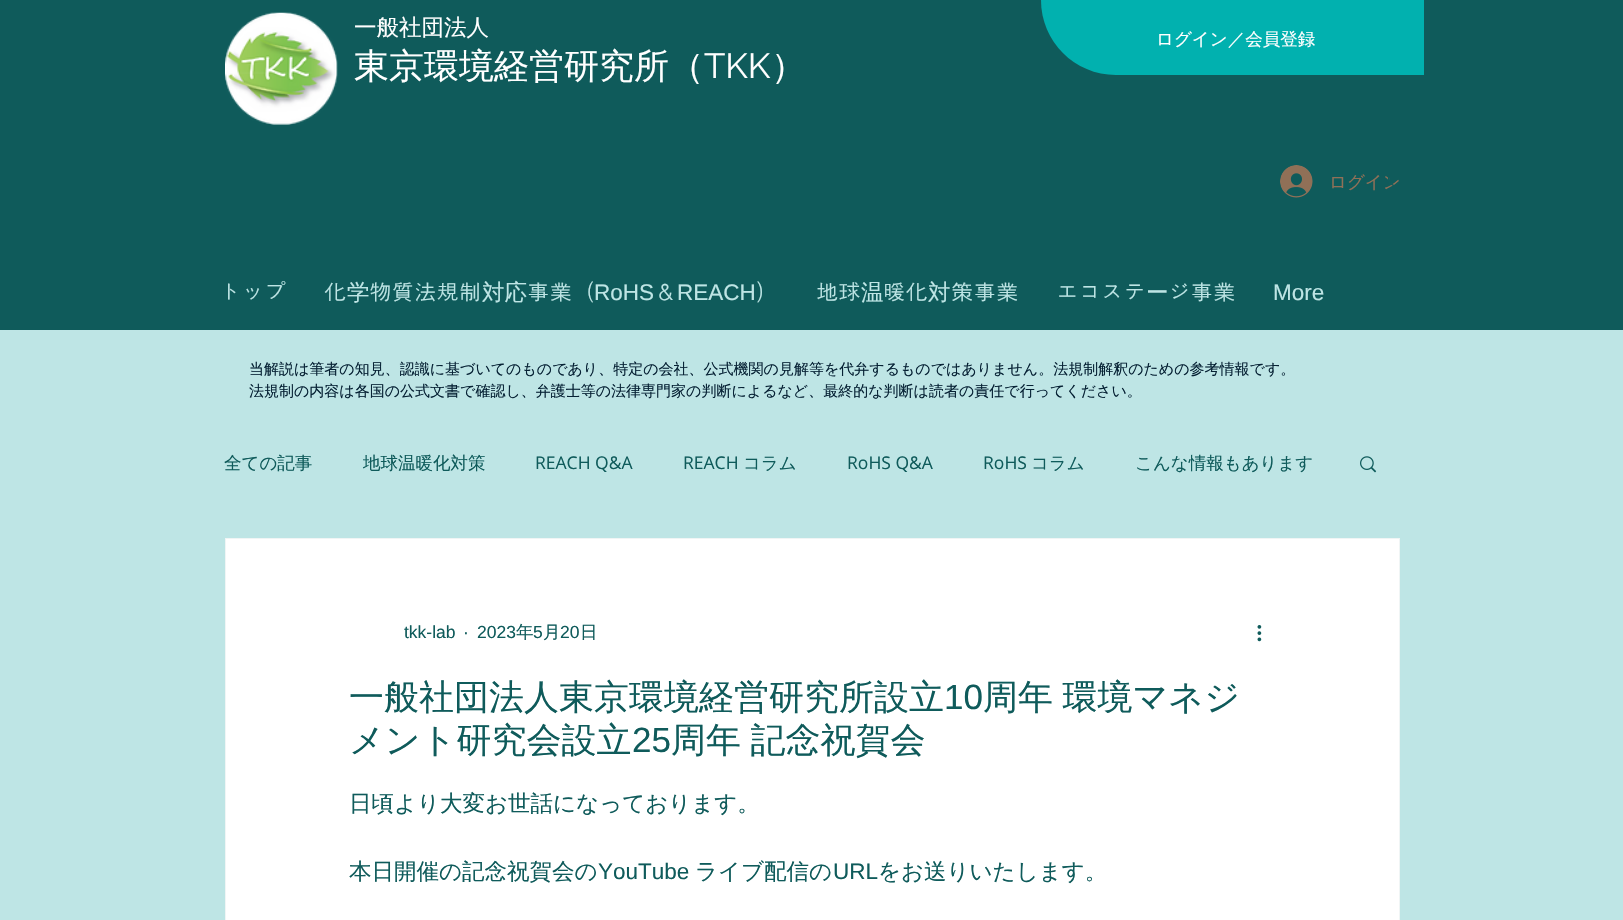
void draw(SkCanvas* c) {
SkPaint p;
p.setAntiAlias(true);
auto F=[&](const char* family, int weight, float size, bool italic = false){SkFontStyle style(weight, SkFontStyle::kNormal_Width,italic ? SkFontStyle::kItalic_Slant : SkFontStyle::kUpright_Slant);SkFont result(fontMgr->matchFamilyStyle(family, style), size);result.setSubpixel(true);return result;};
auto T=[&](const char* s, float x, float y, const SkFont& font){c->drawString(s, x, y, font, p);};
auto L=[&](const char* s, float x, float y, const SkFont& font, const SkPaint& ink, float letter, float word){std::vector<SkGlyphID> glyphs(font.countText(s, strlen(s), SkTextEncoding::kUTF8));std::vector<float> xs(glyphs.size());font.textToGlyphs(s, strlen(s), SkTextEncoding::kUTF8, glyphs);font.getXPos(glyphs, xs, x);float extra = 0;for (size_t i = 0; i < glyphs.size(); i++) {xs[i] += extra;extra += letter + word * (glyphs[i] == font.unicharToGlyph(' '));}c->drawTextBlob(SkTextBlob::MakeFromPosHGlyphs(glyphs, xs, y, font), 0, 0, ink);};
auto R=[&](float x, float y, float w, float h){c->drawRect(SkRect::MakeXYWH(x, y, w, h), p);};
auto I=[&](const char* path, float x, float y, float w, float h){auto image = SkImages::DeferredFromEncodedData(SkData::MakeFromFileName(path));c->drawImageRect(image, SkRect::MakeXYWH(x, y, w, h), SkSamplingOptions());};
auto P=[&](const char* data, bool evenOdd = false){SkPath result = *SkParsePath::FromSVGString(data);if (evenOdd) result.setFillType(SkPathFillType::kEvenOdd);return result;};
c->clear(0xffbee5e5);
p.setColor(0xff0f5b5b);
R(0,0,1623,330);
I("1.png",225,12,113,113);
auto f1 = F("WenQuanYi Zen Hei",500,22.5);
p.setColor(0xffffffff);
T("一般社団法人",354,35,f1);
auto f2 = F("WenQuanYi Zen Hei",500,35);
T("東京環境経営研究所（",354,78,f2);
auto f3 = F("Raleway",400,35);
T("TKK",704,78,f3);
T("）",771,78,f2);
p.setColor(0xff01b1af);
c->drawPath(P("M1041 0h383v75h-308c-41.5 0-75-33.5-75-75z"),p);
auto f4 = F("WenQuanYi Zen Hei",500,17.5);
p.setColor(0xffffffff);
T("ログイン／会員登録",1156,45,f4);
I("2.png",1280,165,33,33);
p.setColor(0xff907057);
T("ログイン",1329,188,f4);
I("3.png",1387,177,7,9);
auto f5 = F("Dotum",400,22.5);
p.setColor(0xffbee5e5);
T("トップ",219,300,f5);
T("化",324,300,f5);
T("学",347,300,f1);
T("物質法規制",369,300,f5);
T("対応",482,300,f1);
T("事業（",527,300,f5);
auto f6 = F("Liberation Sans",400,22.5);
T("RoHS",594,300,f6);
T("＆",654,300,f5);
T("REACH",677,300,f6);
T("）",756,300,f5);
T("地球",816,300,f5);
T("温",861,300,f1);
T("暖化",883,300,f5);
T("対",928,300,f1);
T("策事業",951,300,f5);
T("エコステ",1056,300,f5);
T("ー",1146,300,f1);
T("ジ事業",1168,300,f5);
T("More",1273,300,f6);
auto f7 = F("WenQuanYi Zen Hei",500,15);
p.setColor(0xff062134);
T("当解説は筆者の知見、認識に基づいてのものであり、特定の会社、公式機関の見解等を代弁するものではありません。法規制解釈のための参考情報です。",249,374,f7);
T("法規制の内容は各国の公式文書で確認し、弁護士等の法律専門家の判断によるなど、最終的な判断は読者の責任で行ってください。",249,396,f7);
p.setColor(0xff0f5b5b);
T("全ての記事",224,469,f4);
T("地球温暖化対策",363,469,f4);
auto f8 = F("Open Sans",400,17.5);
T("REACH Q&A",535,469,f8);
T("REACH",683,469,f8);
T("コラム",743,469,f4);
T("RoHS Q&A",847,469,f8);
T("RoHS",983,469,f8);
T("コラム",1031,469,f4);
T("こんな情報もあります",1135,469,f4);
I("4.png",1360,456,17,17);
p.setColor(0xffffffff);
c->drawRect(SkRect::MakeXYWH(225.5,538.5,1174,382),p);
p.setStroke(true);
p.setStrokeWidth(1);
p.setColor(0xfff0f5f5);
c->drawRect(SkRect::MakeXYWH(225.5,538.5,1174,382),p);
auto f9 = F("Liberation Sans",400,17.5);
p.setStroke(false);
p.setColor(0xff0f5b5b);
T("tkk-lab",404,638,f9);
T("·",463,638,f9);
T("2023",477,638,f9);
T("年",516,638,f4);
T("5",533,638,f9);
T("月",543,638,f4);
T("20",560,638,f9);
T("日",580,638,f4);
I("5.png",1257,625,5,17);
T("一般社団法人東京環境経営研究所設立",349,709,f2);
auto f10 = F("Liberation Sans",400,35);
T("10",944,709,f10);
L("周年 環境マネジ",983,709,f2,p,0,-1);
T("メント研究会設立",349,752,f2);
T("25",632,752,f10);
L("周年 記念祝賀会",671,752,f2,p,0,-1);
T("日頃より大変お世話になっております。",349,811,f1);
T("本日開催の記念祝賀会の",349,879,f1);
T("YouTube",598,879,f6);
T("ライブ配信の",695,879,f1);
T("URL",833,879,f6);
T("をお送りいたします。",878,879,f1);
}
